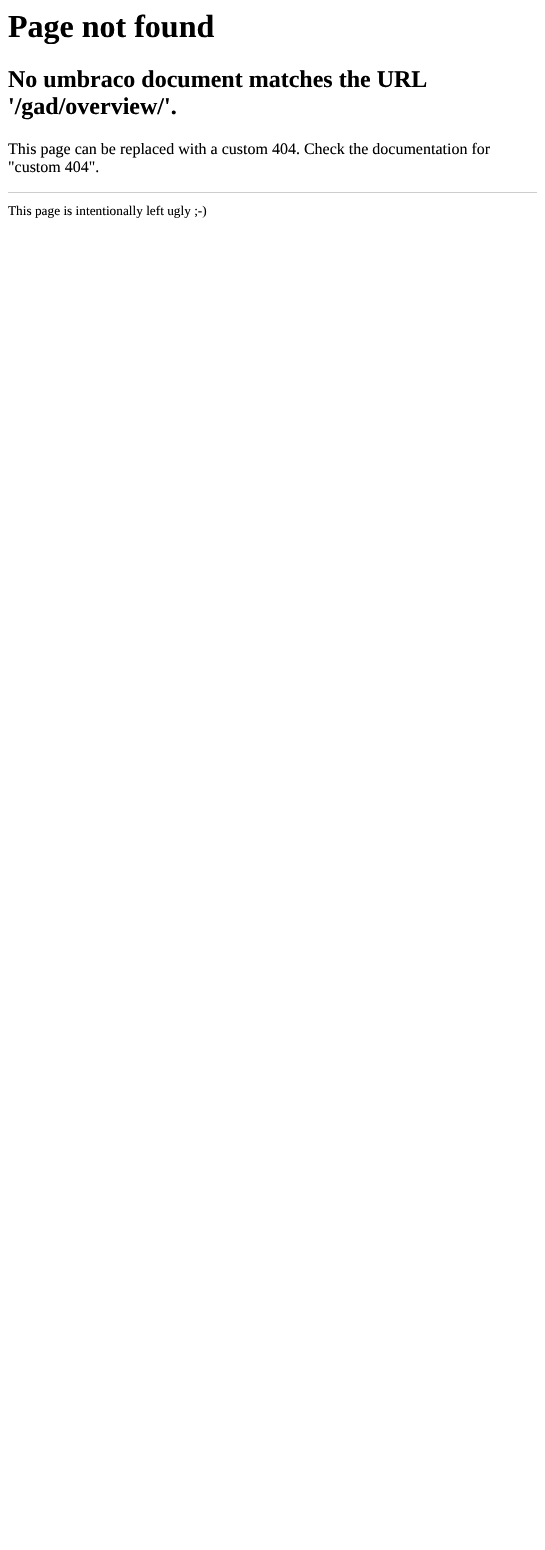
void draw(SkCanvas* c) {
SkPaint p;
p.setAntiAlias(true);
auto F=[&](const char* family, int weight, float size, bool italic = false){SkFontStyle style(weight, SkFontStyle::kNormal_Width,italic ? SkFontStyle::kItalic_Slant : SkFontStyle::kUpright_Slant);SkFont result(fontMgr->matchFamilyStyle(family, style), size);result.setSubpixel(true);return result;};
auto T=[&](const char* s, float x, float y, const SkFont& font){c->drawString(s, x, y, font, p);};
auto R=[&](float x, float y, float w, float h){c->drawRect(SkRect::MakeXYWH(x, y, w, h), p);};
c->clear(0xffffffff);
auto f1 = F("Liberation Serif",700,32);
p.setColor(0xff000000);
T("Page not found",8,37,f1);
auto f2 = F("Liberation Serif",700,24);
T("No umbraco document matches the URL",8,87,f2);
T("'/gad/overview/'.",8,114,f2);
auto f3 = F("Liberation Serif",400,16);
T("This page can be replaced with a custom 404. Check the documentation for",8,154,f3);
T("\"custom 404\".",8,172,f3);
p.setColor(0xffcccccc);
R(8,192,529,1);
auto f4 = F("Liberation Serif",400,13.3);
p.setColor(0xff000000);
T("This page is intentionally left ugly ;-)",8,215,f4);
}
